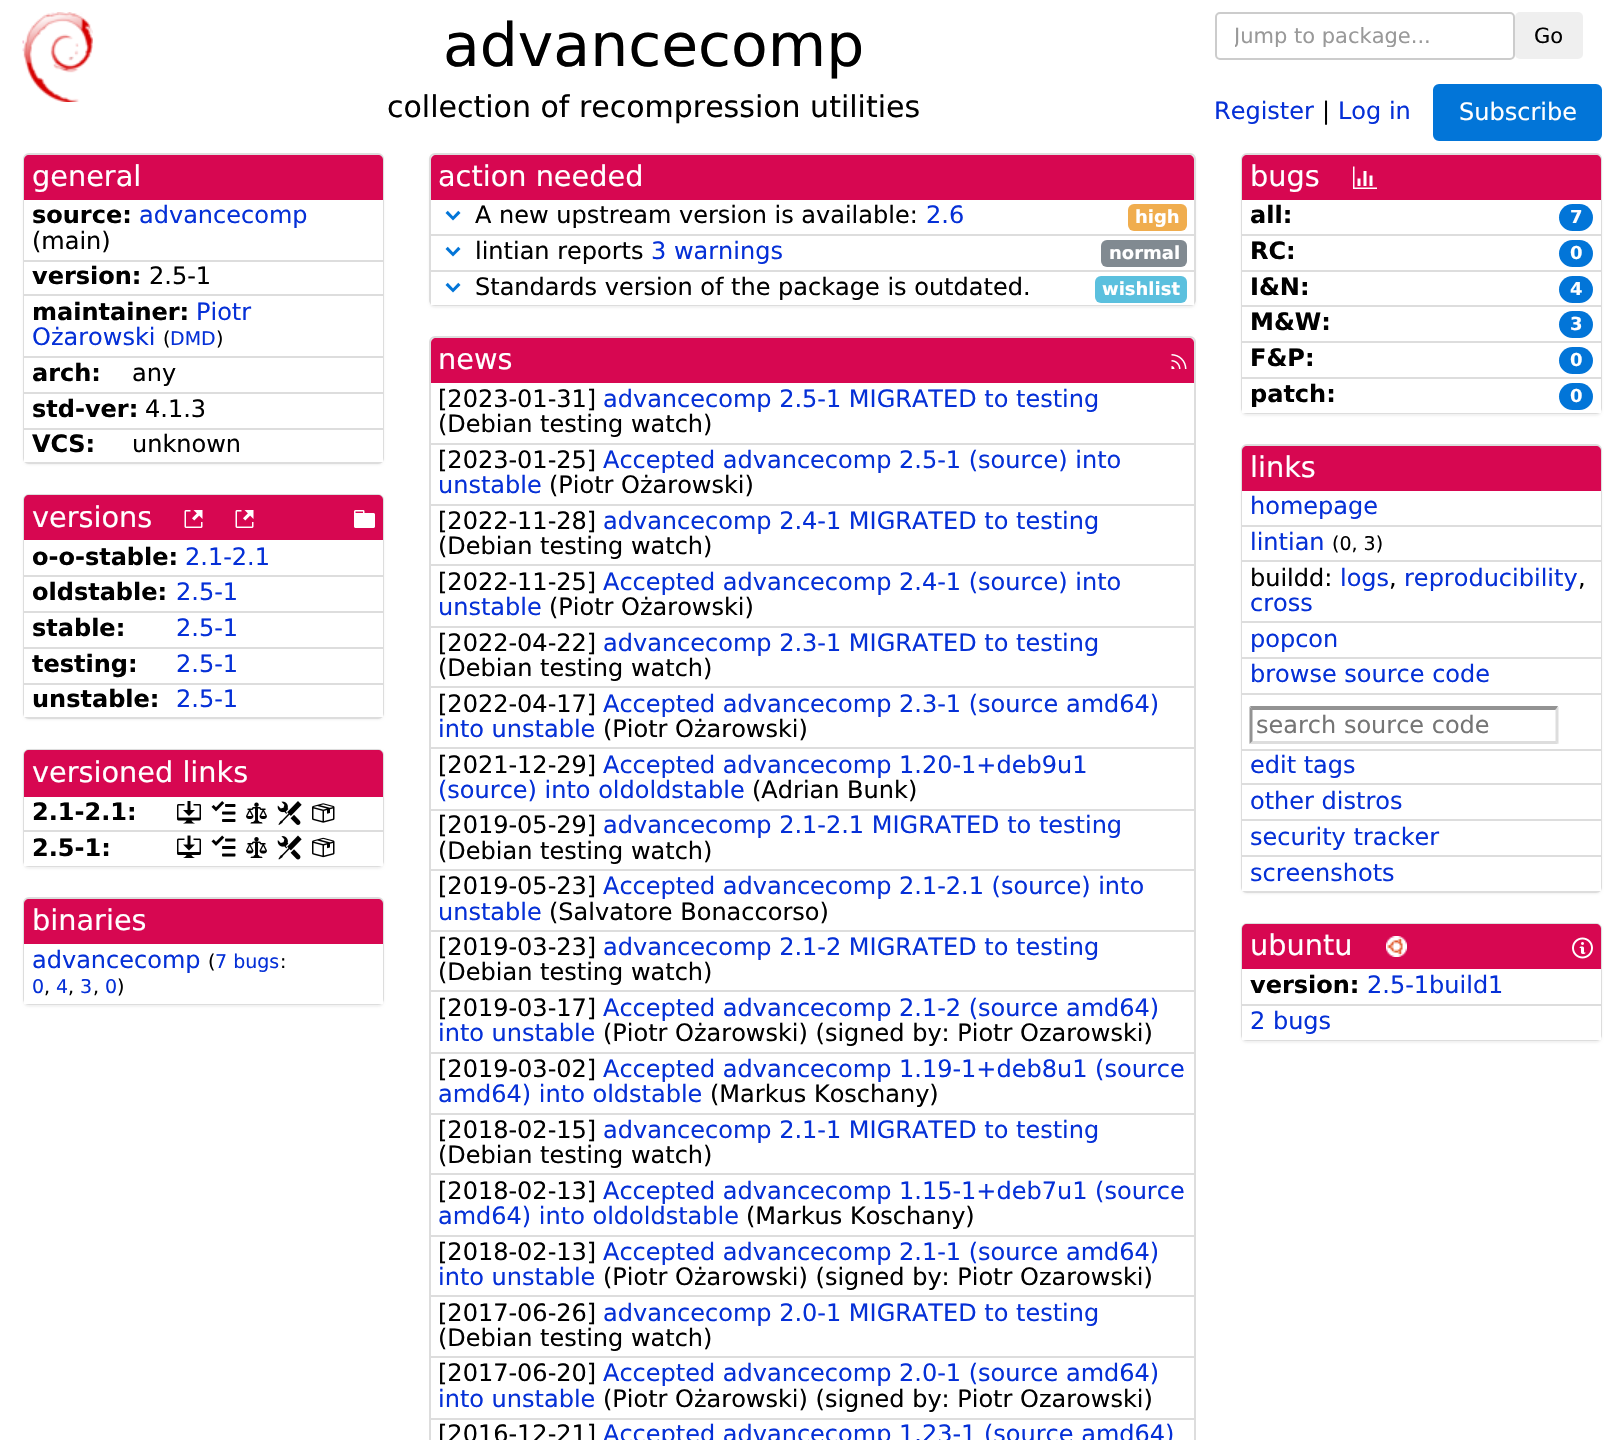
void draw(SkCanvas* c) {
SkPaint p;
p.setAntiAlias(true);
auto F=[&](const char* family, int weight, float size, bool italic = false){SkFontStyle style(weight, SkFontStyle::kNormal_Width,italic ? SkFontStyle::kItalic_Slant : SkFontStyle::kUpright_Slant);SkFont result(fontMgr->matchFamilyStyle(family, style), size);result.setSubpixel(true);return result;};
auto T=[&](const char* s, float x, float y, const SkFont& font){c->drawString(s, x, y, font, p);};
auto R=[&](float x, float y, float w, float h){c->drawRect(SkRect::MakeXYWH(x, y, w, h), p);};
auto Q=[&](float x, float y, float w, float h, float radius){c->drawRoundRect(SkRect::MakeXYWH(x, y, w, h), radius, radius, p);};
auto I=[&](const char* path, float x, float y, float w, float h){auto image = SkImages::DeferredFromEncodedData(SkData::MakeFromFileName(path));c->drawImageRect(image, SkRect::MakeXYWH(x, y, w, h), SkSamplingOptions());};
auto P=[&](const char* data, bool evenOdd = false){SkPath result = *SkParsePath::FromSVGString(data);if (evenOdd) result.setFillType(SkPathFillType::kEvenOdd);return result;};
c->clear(0xffffffff);
I("1.png",22,12,71,90);
auto f1 = F("DejaVu Sans",400,60);
p.setColor(0xff000000);
T("advancecomp",443,66,f1);
auto f2 = F("DejaVu Sans",400,30);
T("collection of recompression utilities",387,117,f2);
p.setStroke(true);
p.setStrokeWidth(2);
p.setColor(0xffcccccc);
c->drawRoundRect(SkRect::MakeXYWH(1216,13,298,46),4,4,p);
c->save();
c->clipRect(SkRect::MakeXYWH(1235,23,255,24));
auto f3 = F("DejaVu Sans",400,21);
p.setStroke(false);
p.setColor(0xff999999);
T("Jump to package...",1234,43,f3);
c->restore();
p.setColor(0xffefefef);
Q(1515,12,68,47,5);
p.setColor(0xff000000);
T("Go",1534,43,f3);
auto f4 = F("DejaVu Sans",400,24);
p.setColor(0xff0530d7);
T("Register",1214,119,f4);
p.setColor(0xff000000);
T("|",1322,119,f4);
p.setColor(0xff0530d7);
T("Log in",1338,119,f4);
p.setColor(0xff0275d8);
c->drawRoundRect(SkRect::MakeXYWH(1434,85,167,55),5,5,p);
p.setStroke(true);
c->drawRoundRect(SkRect::MakeXYWH(1434,85,167,55),5,5,p);
p.setStroke(false);
p.setColor(0xffffffff);
T("Subscribe",1459,120,f4);
p.setColor(0x0d000000);
p.setMaskFilter(SkMaskFilter::MakeBlur(kNormal_SkBlurStyle, 1));
c->drawRoundRect(SkRect::MakeXYWH(23,155,361,310),6,6,p);
p.setMaskFilter(nullptr);
p.setStroke(true);
p.setColor(0xffdddddd);
c->drawRoundRect(SkRect::MakeXYWH(24,154,359,309),5,5,p);
p.setStroke(false);
p.setColor(0xffd70751);
c->drawPath(P("M29 155h349c3 0 5 2 5 5v41h-359v-41c0-3 2-5 5-5z"),p);
auto f5 = F("DejaVu Sans",400,28.75);
p.setColor(0xffffffff);
T("general",32,186,f5);
R(24,200,359,262);
auto f6 = F("DejaVu Sans",700,24);
p.setColor(0xff000000);
T("source:",32,223,f6);
p.setColor(0xff0530d7);
T("advancecomp",139,223,f4);
p.setColor(0xff000000);
T("(main)",32,249,f4);
p.setColor(0xffdddddd);
R(24,260,359,2);
R(24,294,359,2);
p.setColor(0xff000000);
T("version:",32,284,f6);
T("2.5-1",149,284,f4);
T("maintainer:",32,320,f6);
p.setColor(0xff0530d7);
T("Piotr",196,320,f4);
T("Ożarowski",32,345,f4);
auto f7 = F("DejaVu Sans",400,19);
p.setColor(0xff000000);
T("(",163,345,f7);
p.setColor(0xff0530d7);
T("DMD",170,345,f7);
p.setColor(0xff000000);
T(")",216,345,f7);
p.setColor(0xffdddddd);
R(24,356,359,2);
p.setColor(0xff000000);
T("arch:",32,381,f6);
T("any",132,381,f4);
p.setColor(0xffdddddd);
R(24,392,359,2);
p.setColor(0xff000000);
T("std-ver:",32,417,f6);
T("4.1.3",145,417,f4);
p.setColor(0xffdddddd);
R(24,428,359,2);
p.setColor(0xff000000);
T("VCS:",32,452,f6);
T("unknown",132,452,f4);
p.setColor(0x0d000000);
p.setMaskFilter(SkMaskFilter::MakeBlur(kNormal_SkBlurStyle, 1));
c->drawRoundRect(SkRect::MakeXYWH(23,495,361,225),6,6,p);
p.setMaskFilter(nullptr);
p.setStroke(true);
p.setColor(0xffdddddd);
c->drawRoundRect(SkRect::MakeXYWH(24,495,359,223),5,5,p);
p.setStroke(false);
p.setColor(0xffd70751);
c->drawPath(P("M29 495h349c3 0 5 2 5 5v42h-359v-42c0-3 2-5 5-5z"),p);
p.setColor(0xffffffff);
T("versions",32,527,f5);
I("2.png",184,510,19,18);
I("2.png",235,510,19,18);
I("3.png",354,510,21,18);
R(24,540,359,177);
p.setColor(0xff000000);
T("o-o-stable:",32,565,f6);
p.setColor(0xff0530d7);
T("2.1-2.1",185,565,f4);
p.setColor(0xffdddddd);
R(24,575,359,2);
p.setColor(0xff000000);
T("oldstable:",32,600,f6);
p.setColor(0xff0530d7);
T("2.5-1",176,600,f4);
p.setColor(0xffdddddd);
R(24,611,359,2);
p.setColor(0xff000000);
T("stable:",32,636,f6);
p.setColor(0xff0530d7);
T("2.5-1",176,636,f4);
p.setColor(0xffdddddd);
R(24,647,359,2);
p.setColor(0xff000000);
T("testing:",32,672,f6);
p.setColor(0xff0530d7);
T("2.5-1",176,672,f4);
p.setColor(0xffdddddd);
R(24,683,359,2);
p.setColor(0xff000000);
T("unstable:",32,707,f6);
p.setColor(0xff0530d7);
T("2.5-1",176,707,f4);
p.setColor(0x0d000000);
p.setMaskFilter(SkMaskFilter::MakeBlur(kNormal_SkBlurStyle, 1));
c->drawRoundRect(SkRect::MakeXYWH(23,750,361,119),6,6,p);
p.setMaskFilter(nullptr);
p.setStroke(true);
p.setColor(0xffdddddd);
c->drawRoundRect(SkRect::MakeXYWH(24,750,359,116),5,5,p);
p.setStroke(false);
p.setColor(0xffd70751);
c->drawPath(P("M29 750h349c3 0 5 2 5 5v43h-359v-43c0-3 2-5 5-5z"),p);
p.setColor(0xffffffff);
T("versioned links",32,782,f5);
R(24,797,359,69);
p.setColor(0xff000000);
T("2.1-2.1:",32,820,f6);
I("4.png",177,801,24,23);
I("5.png",211,801,25,21);
I("6.png",246,802,21,22);
I("7.png",277,801,25,24);
I("8.png",312,803,23,20);
p.setColor(0xffdddddd);
R(24,830,359,2);
p.setColor(0xff000000);
T("2.5-1:",32,856,f6);
I("9.png",177,835,24,23);
I("10.png",211,835,25,22);
I("11.png",246,837,21,21);
I("12.png",277,835,25,25);
I("13.png",312,837,23,21);
p.setColor(0x0d000000);
p.setMaskFilter(SkMaskFilter::MakeBlur(kNormal_SkBlurStyle, 1));
c->drawRoundRect(SkRect::MakeXYWH(23,899,361,108),6,6,p);
p.setMaskFilter(nullptr);
p.setStroke(true);
p.setColor(0xffdddddd);
c->drawRoundRect(SkRect::MakeXYWH(24,898,359,106),5,5,p);
p.setStroke(false);
p.setColor(0xffd70751);
c->drawPath(P("M29 899h349c3 0 5 2 5 5v41h-359v-41c0-3 2-5 5-5z"),p);
p.setColor(0xffffffff);
T("binaries",32,930,f5);
R(24,944,359,60);
p.setColor(0xff0530d7);
T("advancecomp",32,968,f4);
p.setColor(0xff000000);
T("(",208,968,f7);
p.setColor(0xff0530d7);
T("7 bugs",215,968,f7);
p.setColor(0xff000000);
T(":",280,968,f7);
p.setColor(0xff0530d7);
T("0",32,993,f7);
p.setColor(0xff000000);
T(",",44,993,f7);
p.setColor(0xff0530d7);
T("4",56,993,f7);
p.setColor(0xff000000);
T(",",68,993,f7);
p.setColor(0xff0530d7);
T("3",80,993,f7);
p.setColor(0xff000000);
T(",",93,993,f7);
p.setColor(0xff0530d7);
T("0",105,993,f7);
p.setColor(0xff000000);
T(")",117,993,f7);
p.setColor(0x0d000000);
p.setMaskFilter(SkMaskFilter::MakeBlur(kNormal_SkBlurStyle, 1));
c->drawRoundRect(SkRect::MakeXYWH(429,155,767,153),6,6,p);
p.setMaskFilter(nullptr);
p.setColor(0xffffffff);
c->drawRoundRect(SkRect::MakeXYWH(430,154,765,151),5,5,p);
p.setStroke(true);
p.setColor(0xffdddddd);
c->drawRoundRect(SkRect::MakeXYWH(430,154,765,151),5,5,p);
p.setStroke(false);
p.setColor(0xffd70751);
c->drawPath(P("M436 155h753c3 0 5 2 5 5v41h-763v-41c0-3 2-5 5-5z"),p);
p.setColor(0xffffffff);
T("action needed",438,186,f5);
R(431,200,763,105);
p.setColor(0xffdddddd);
R(431,234,763,2);
I("14.png",445,210,16,11);
p.setColor(0xff000000);
T("A new upstream version is available:",475,223,f4);
p.setColor(0xff0530d7);
T("2.6",926,223,f4);
p.setColor(0xfff0ad4e);
Q(1128,204,59,27,6);
auto f8 = F("DejaVu Sans",700,18);
p.setColor(0xffffffff);
T("high",1135,223,f8);
I("14.png",445,246,16,11);
p.setColor(0xff000000);
T("lintian reports",475,259,f4);
p.setColor(0xff0530d7);
T("3 warnings",651,259,f4);
p.setColor(0xff818a91);
Q(1101,240,86,27,6);
p.setColor(0xffffffff);
T("normal",1109,259,f8);
p.setColor(0xffdddddd);
R(431,270,763,2);
I("14.png",445,282,16,11);
p.setColor(0xff000000);
T("Standards version of the package is outdated.",475,295,f4);
p.setColor(0xff5bc0de);
Q(1095,276,92,27,6);
p.setColor(0xffffffff);
T("wishlist",1102,295,f8);
p.setStroke(true);
p.setColor(0xffdddddd);
c->drawRoundRect(SkRect::MakeXYWH(430,337,765,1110),5,5,p);
p.setStroke(false);
p.setColor(0xffd70751);
c->drawPath(P("M436 338h753c3 0 5 2 5 5v41h-763v-41c0-3 2-5 5-5z"),p);
p.setColor(0xffffffff);
T("news",438,369,f5);
I("15.png",1171,354,16,15);
R(431,383,763,1);
p.setColor(0xff000000);
T("[2023-01-31]",438,407,f4);
p.setColor(0xff0530d7);
T("advancecomp 2.5-1 MIGRATED to testing",603,407,f4);
p.setColor(0xff000000);
T("(Debian testing watch)",438,432,f4);
p.setColor(0xffdddddd);
R(431,443,763,2);
R(431,504,763,2);
p.setColor(0xff000000);
T("[2023-01-25]",438,468,f4);
p.setColor(0xff0530d7);
T("Accepted advancecomp 2.5-1 (source) into",603,468,f4);
T("unstable",438,493,f4);
p.setColor(0xff000000);
T("(Piotr Ożarowski)",549,493,f4);
p.setColor(0xffdddddd);
R(431,564,763,2);
p.setColor(0xff000000);
T("[2022-11-28]",438,529,f4);
p.setColor(0xff0530d7);
T("advancecomp 2.4-1 MIGRATED to testing",603,529,f4);
p.setColor(0xff000000);
T("(Debian testing watch)",438,554,f4);
T("[2022-11-25]",438,590,f4);
p.setColor(0xff0530d7);
T("Accepted advancecomp 2.4-1 (source) into",603,590,f4);
T("unstable",438,615,f4);
p.setColor(0xff000000);
T("(Piotr Ożarowski)",549,615,f4);
p.setColor(0xffdddddd);
R(431,626,763,2);
p.setColor(0xff000000);
T("[2022-04-22]",438,651,f4);
p.setColor(0xff0530d7);
T("advancecomp 2.3-1 MIGRATED to testing",603,651,f4);
p.setColor(0xff000000);
T("(Debian testing watch)",438,676,f4);
p.setColor(0xffdddddd);
R(431,686,763,2);
R(431,747,763,2);
p.setColor(0xff000000);
T("[2022-04-17]",438,712,f4);
p.setColor(0xff0530d7);
T("Accepted advancecomp 2.3-1 (source amd64)",603,712,f4);
T("into unstable",438,737,f4);
p.setColor(0xff000000);
T("(Piotr Ożarowski)",603,737,f4);
T("[2021-12-29]",438,773,f4);
p.setColor(0xff0530d7);
T("Accepted advancecomp 1.20-1+deb9u1",603,773,f4);
T("(source) into oldoldstable",438,798,f4);
p.setColor(0xff000000);
T("(Adrian Bunk)",752,798,f4);
p.setColor(0xffdddddd);
R(431,809,763,2);
p.setColor(0xff000000);
T("[2019-05-29]",438,833,f4);
p.setColor(0xff0530d7);
T("advancecomp 2.1-2.1 MIGRATED to testing",603,833,f4);
p.setColor(0xff000000);
T("(Debian testing watch)",438,859,f4);
p.setColor(0xffdddddd);
R(431,869,763,2);
R(431,930,763,2);
p.setColor(0xff000000);
T("[2019-05-23]",438,894,f4);
p.setColor(0xff0530d7);
T("Accepted advancecomp 2.1-2.1 (source) into",603,894,f4);
T("unstable",438,920,f4);
p.setColor(0xff000000);
T("(Salvatore Bonaccorso)",549,920,f4);
p.setColor(0xffdddddd);
R(431,990,763,2);
p.setColor(0xff000000);
T("[2019-03-23]",438,955,f4);
p.setColor(0xff0530d7);
T("advancecomp 2.1-2 MIGRATED to testing",603,955,f4);
p.setColor(0xff000000);
T("(Debian testing watch)",438,980,f4);
T("[2019-03-17]",438,1016,f4);
p.setColor(0xff0530d7);
T("Accepted advancecomp 2.1-2 (source amd64)",603,1016,f4);
T("into unstable",438,1041,f4);
p.setColor(0xff000000);
T("(Piotr Ożarowski) (signed by: Piotr Ozarowski)",603,1041,f4);
p.setColor(0xffdddddd);
R(431,1052,763,2);
R(431,1113,763,2);
p.setColor(0xff000000);
T("[2019-03-02]",438,1077,f4);
p.setColor(0xff0530d7);
T("Accepted advancecomp 1.19-1+deb8u1 (source",603,1077,f4);
T("amd64) into oldstable",438,1102,f4);
p.setColor(0xff000000);
T("(Markus Koschany)",710,1102,f4);
p.setColor(0xffdddddd);
R(431,1173,763,2);
p.setColor(0xff000000);
T("[2018-02-15]",438,1138,f4);
p.setColor(0xff0530d7);
T("advancecomp 2.1-1 MIGRATED to testing",603,1138,f4);
p.setColor(0xff000000);
T("(Debian testing watch)",438,1163,f4);
T("[2018-02-13]",438,1199,f4);
p.setColor(0xff0530d7);
T("Accepted advancecomp 1.15-1+deb7u1 (source",603,1199,f4);
T("amd64) into oldoldstable",438,1224,f4);
p.setColor(0xff000000);
T("(Markus Koschany)",746,1224,f4);
p.setColor(0xffdddddd);
R(431,1235,763,2);
p.setColor(0xff000000);
T("[2018-02-13]",438,1260,f4);
p.setColor(0xff0530d7);
T("Accepted advancecomp 2.1-1 (source amd64)",603,1260,f4);
T("into unstable",438,1285,f4);
p.setColor(0xff000000);
T("(Piotr Ożarowski) (signed by: Piotr Ozarowski)",603,1285,f4);
p.setColor(0xffdddddd);
R(431,1295,763,2);
R(431,1356,763,2);
p.setColor(0xff000000);
T("[2017-06-26]",438,1321,f4);
p.setColor(0xff0530d7);
T("advancecomp 2.0-1 MIGRATED to testing",603,1321,f4);
p.setColor(0xff000000);
T("(Debian testing watch)",438,1346,f4);
T("[2017-06-20]",438,1381,f4);
p.setColor(0xff0530d7);
T("Accepted advancecomp 2.0-1 (source amd64)",603,1381,f4);
T("into unstable",438,1407,f4);
p.setColor(0xff000000);
T("(Piotr Ożarowski) (signed by: Piotr Ozarowski)",603,1407,f4);
p.setColor(0xffdddddd);
R(431,1418,763,2);
p.setColor(0xff000000);
T("[2016-12-21]",438,1442,f4);
p.setColor(0xff0530d7);
T("Accepted advancecomp 1.23-1 (source amd64)",603,1442,f4);
p.setColor(0x0d000000);
p.setMaskFilter(SkMaskFilter::MakeBlur(kNormal_SkBlurStyle, 1));
c->drawRoundRect(SkRect::MakeXYWH(1241,155,361,261),6,6,p);
p.setMaskFilter(nullptr);
p.setStroke(true);
p.setColor(0xffdddddd);
c->drawRoundRect(SkRect::MakeXYWH(1242,154,359,259),5,5,p);
p.setStroke(false);
p.setColor(0xffd70751);
c->drawPath(P("M1247 155h349c3 0 5 2 5 5v41h-359v-41c0-3 2-5 5-5z"),p);
p.setColor(0xffffffff);
T("bugs",1250,186,f5);
I("16.png",1353,166,24,23);
R(1242,200,359,213);
p.setColor(0xffdddddd);
R(1242,234,359,2);
p.setColor(0xff000000);
T("all:",1250,223,f6);
p.setColor(0xff0275d8);
Q(1559,204,34,27,13.5);
p.setColor(0xffffffff);
T("7",1570,223,f8);
p.setColor(0xffdddddd);
R(1242,270,359,2);
p.setColor(0xff000000);
T("RC:",1250,259,f6);
p.setColor(0xff0275d8);
Q(1559,240,34,27,13.5);
p.setColor(0xffffffff);
T("0",1570,259,f8);
p.setColor(0xff000000);
T("I&N:",1250,295,f6);
p.setColor(0xff0275d8);
Q(1559,276,34,27,13.5);
p.setColor(0xffffffff);
T("4",1570,295,f8);
p.setColor(0xffdddddd);
R(1242,305,359,2);
p.setColor(0xff000000);
T("M&W:",1250,330,f6);
p.setColor(0xff0275d8);
Q(1559,311,34,27,13.5);
p.setColor(0xffffffff);
T("3",1570,330,f8);
p.setColor(0xffdddddd);
R(1242,341,359,2);
p.setColor(0xff000000);
T("F&P:",1250,366,f6);
p.setColor(0xff0275d8);
Q(1559,347,34,27,13.5);
p.setColor(0xffffffff);
T("0",1570,366,f8);
p.setColor(0xffdddddd);
R(1242,377,359,2);
p.setColor(0xff000000);
T("patch:",1250,402,f6);
p.setColor(0xff0275d8);
Q(1559,383,34,27,13.5);
p.setColor(0xffffffff);
T("0",1570,402,f8);
p.setColor(0x0d000000);
p.setMaskFilter(SkMaskFilter::MakeBlur(kNormal_SkBlurStyle, 1));
c->drawRoundRect(SkRect::MakeXYWH(1241,446,361,448),6,6,p);
p.setMaskFilter(nullptr);
p.setStroke(true);
p.setColor(0xffdddddd);
c->drawRoundRect(SkRect::MakeXYWH(1242,445,359,447),5,5,p);
p.setStroke(false);
p.setColor(0xffd70751);
c->drawPath(P("M1247 446h349c3 0 5 2 5 5v41h-359v-41c0-3 2-5 5-5z"),p);
p.setColor(0xffffffff);
T("links",1250,477,f5);
R(1242,491,359,400);
p.setColor(0xffdddddd);
R(1242,525,359,2);
p.setColor(0xff0530d7);
T("homepage",1250,514,f4);
T("lintian",1250,550,f4);
p.setColor(0xff000000);
T("(0, 3)",1332,550,f7);
p.setColor(0xffdddddd);
R(1242,560,359,2);
R(1242,621,359,2);
p.setColor(0xff000000);
T("buildd:",1250,586,f4);
p.setColor(0xff0530d7);
T("logs",1340,586,f4);
p.setColor(0xff000000);
T(",",1389,586,f4);
p.setColor(0xff0530d7);
T("reproducibility",1404,586,f4);
p.setColor(0xff000000);
T(",",1578,586,f4);
p.setColor(0xff0530d7);
T("cross",1250,611,f4);
p.setColor(0xffdddddd);
R(1242,657,359,2);
p.setColor(0xff0530d7);
T("popcon",1250,647,f4);
p.setColor(0xffdddddd);
R(1242,693,359,2);
p.setColor(0xff0530d7);
T("browse source code",1250,682,f4);
p.setColor(0xff939393);
c->drawPath(P("M1250 706h308l-2 4h-304z"),p);
p.setColor(0xffdddddd);
c->drawPath(P("M1558.5 706.5v37.5l-3-3v-31.5z"),p);
c->drawPath(P("M1558 744h-308l2-3h304z"),p);
p.setColor(0xff939393);
c->drawPath(P("M1249.5 744v-37.5l3 3v31.5z"),p);
p.setColor(0xff757575);
T("search source code",1256,733,f4);
p.setColor(0xffdddddd);
R(1242,749,359,2);
R(1242,783,359,2);
p.setColor(0xff0530d7);
T("edit tags",1250,773,f4);
p.setColor(0xffdddddd);
R(1242,819,359,2);
p.setColor(0xff0530d7);
T("other distros",1250,809,f4);
T("security tracker",1250,845,f4);
p.setColor(0xffdddddd);
R(1242,855,359,2);
p.setColor(0xff0530d7);
T("screenshots",1250,881,f4);
p.setColor(0x0d000000);
p.setMaskFilter(SkMaskFilter::MakeBlur(kNormal_SkBlurStyle, 1));
c->drawRoundRect(SkRect::MakeXYWH(1241,924,361,119),6,6,p);
p.setMaskFilter(nullptr);
p.setStroke(true);
p.setColor(0xffdddddd);
c->drawRoundRect(SkRect::MakeXYWH(1242,924,359,116),5,5,p);
p.setStroke(false);
p.setColor(0xffd70751);
c->drawPath(P("M1247 924h349c3 0 5 2 5 5v42h-359v-42c0-3 2-5 5-5z"),p);
p.setColor(0xffffffff);
T("ubuntu",1250,955,f5);
I("17.png",1386,936,21,21);
I("18.png",1572,937,21,22);
R(1242,969,359,71);
p.setColor(0xff000000);
T("version:",1250,993,f6);
p.setColor(0xff0530d7);
T("2.5-1build1",1367,993,f4);
p.setColor(0xffdddddd);
R(1242,1004,359,2);
p.setColor(0xff0530d7);
T("2 bugs",1250,1029,f4);
}
